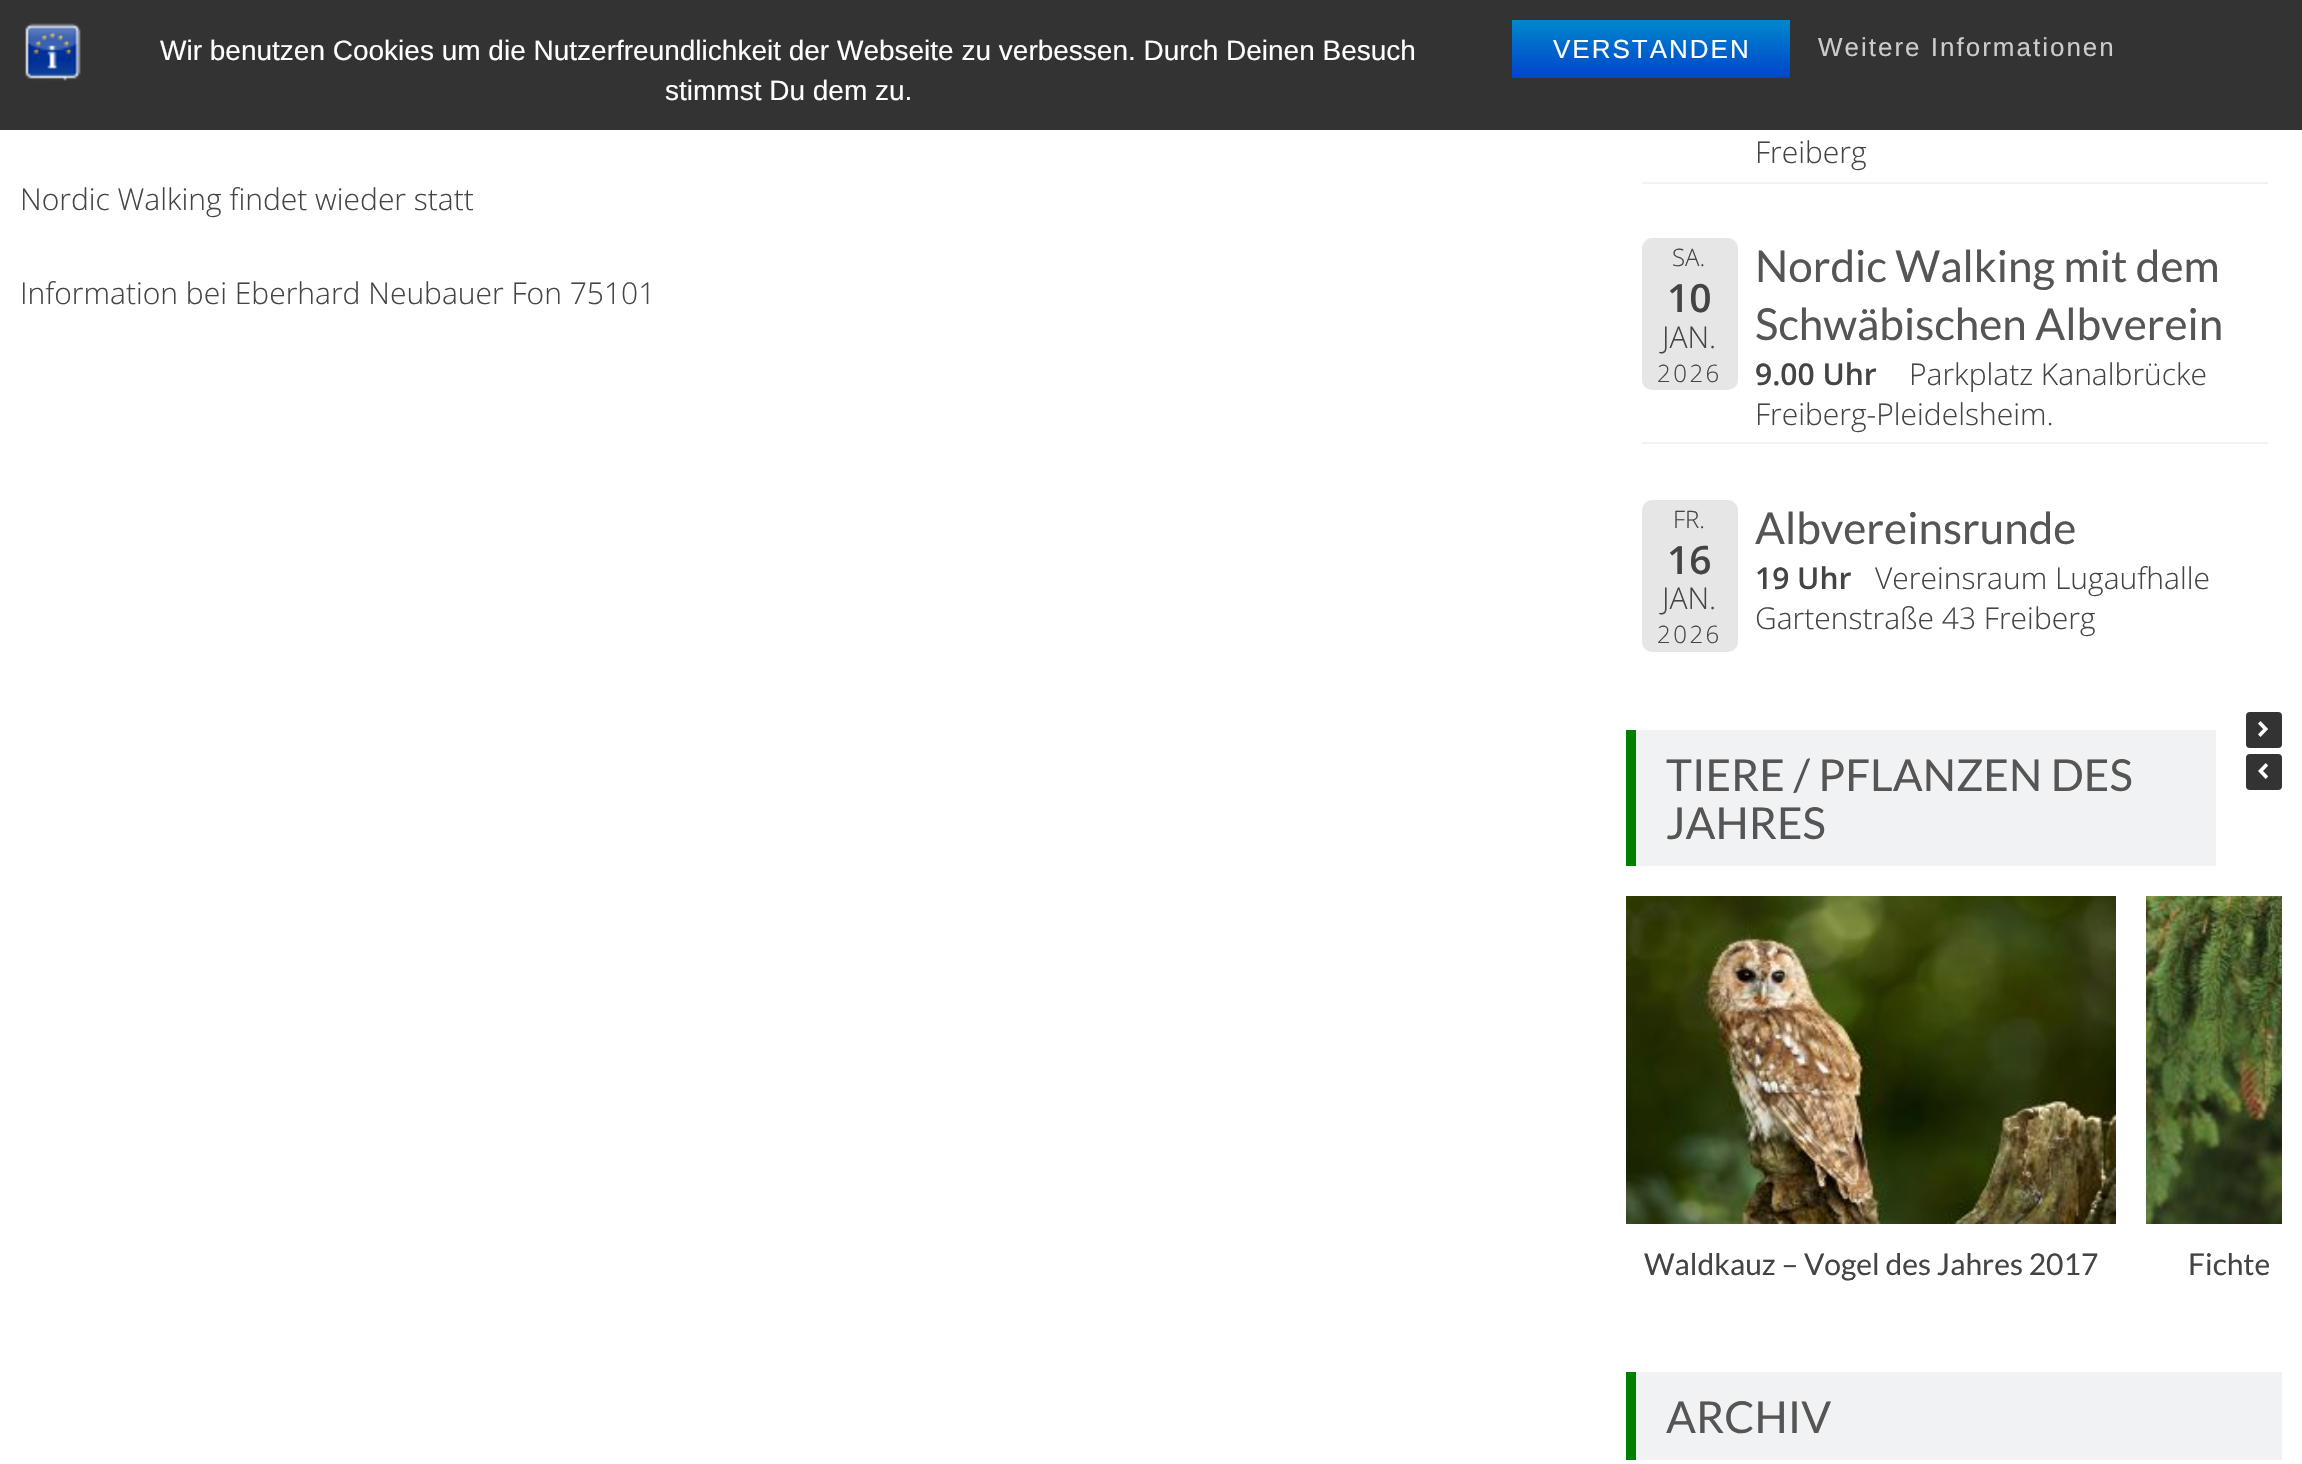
void draw(SkCanvas* c) {
SkPaint p;
p.setAntiAlias(true);
auto F=[&](const char* family, int weight, float size, bool italic = false){SkFontStyle style(weight, SkFontStyle::kNormal_Width,italic ? SkFontStyle::kItalic_Slant : SkFontStyle::kUpright_Slant);SkFont result(fontMgr->matchFamilyStyle(family, style), size);result.setSubpixel(true);return result;};
auto T=[&](const char* s, float x, float y, const SkFont& font){c->drawString(s, x, y, font, p);};
auto L=[&](const char* s, float x, float y, const SkFont& font, const SkPaint& ink, float letter, float word){std::vector<SkGlyphID> glyphs(font.countText(s, strlen(s), SkTextEncoding::kUTF8));std::vector<float> xs(glyphs.size());font.textToGlyphs(s, strlen(s), SkTextEncoding::kUTF8, glyphs);font.getXPos(glyphs, xs, x);float extra = 0;for (size_t i = 0; i < glyphs.size(); i++) {xs[i] += extra;extra += letter + word * (glyphs[i] == font.unicharToGlyph(' '));}c->drawTextBlob(SkTextBlob::MakeFromPosHGlyphs(glyphs, xs, y, font), 0, 0, ink);};
auto R=[&](float x, float y, float w, float h){c->drawRect(SkRect::MakeXYWH(x, y, w, h), p);};
auto Q=[&](float x, float y, float w, float h, float radius){c->drawRoundRect(SkRect::MakeXYWH(x, y, w, h), radius, radius, p);};
auto I=[&](const char* path, float x, float y, float w, float h){auto image = SkImages::DeferredFromEncodedData(SkData::MakeFromFileName(path));c->drawImageRect(image, SkRect::MakeXYWH(x, y, w, h), SkSamplingOptions());};
c->clear(0xffffffff);
p.setColor(0xff333333);
R(0,0,2302,130);
I("1.png",25,23,56,58);
auto f1 = F("Liberation Sans",400,28);
p.setColor(0xffffffff);
T("Wir benutzen Cookies um die Nutzerfreundlichkeit der Webseite zu verbessen. Durch Deinen Besuch",160,60,f1);
T("stimmst Du dem zu.",665,100,f1);
{
const SkColor colors[] = {0xff0088cc,0xff0044cc};
const float stops[] = {0,1};
const SkPoint ends[] = {{1651,20}, {1651,78}};
p.setShader(SkGradientShader::MakeLinear(ends, colors, stops, 2, SkTileMode::kClamp));
p.setAlpha(255);
}
R(1512,20,278,58);
auto f2 = F("Liberation Sans",400,26);
p.setShader(nullptr);
p.setColor(0xffffffff);
L("VERSTANDEN",1553,58,f2,p,2,0);
p.setColor(0xffcccccc);
L("Weitere Informationen",1818,56,f2,p,2,0);
auto f3 = F("Open Sans",300,30);
p.setColor(0xff444444);
T("Nordic Walking findet wieder statt",20,210,f3);
T("Information bei Eberhard Neubauer Fon 75101",20,304,f3);
p.setColor(0xfff2f2f2);
R(1642,182,626,2);
p.setColor(0xff444444);
T("Freiberg",1755,163,f3);
p.setColor(0xfff2f2f2);
R(1642,442,626,2);
p.setColor(0xffe6e6e6);
Q(1642,238,96,152,10);
auto f4 = F("Open Sans",300,24);
p.setColor(0xff444444);
T("SA.",1672,266,f4);
auto f5 = F("Open Sans",600,39);
T("10",1667,312,f5);
T("JAN.",1662,348,f3);
L("2026",1657,382,f4,p,2.5,0);
auto f6 = F("Lato",400,44);
p.setColor(0xff555555);
T("Nordic Walking mit dem",1755,282,f6);
T("Schwäbischen Albverein",1755,340,f6);
auto f7 = F("Open Sans",600,30);
p.setColor(0xff444444);
T("9.00 Uhr",1755,385,f7);
T("Parkplatz Kanalbrücke",1909,385,f3);
T("Freiberg-Pleidelsheim.",1755,425,f3);
p.setColor(0xffe6e6e6);
Q(1642,500,96,152,10);
p.setColor(0xff444444);
T("FR.",1673,528,f4);
T("16",1667,574,f5);
T("JAN.",1662,609,f3);
L("2026",1657,643,f4,p,2.5,0);
p.setColor(0xff555555);
T("Albvereinsrunde",1755,544,f6);
p.setColor(0xff444444);
T("19 Uhr",1755,589,f7);
T("Vereinsraum Lugaufhalle",1875,589,f3);
T("Gartenstraße 43 Freiberg",1755,629,f3);
p.setColor(0xfff1f2f3);
R(1636,730,580,136);
p.setColor(0xff008000);
R(1626,730,10,136);
p.setColor(0xff555555);
T("TIERE / PFLANZEN DES",1666,791,f6);
T("JAHRES",1666,839,f6);
p.setColor(0xff333333);
Q(2246,712,36,36,4);
I("2.png",2258,721,10,16);
Q(2246,754,36,36,4);
I("3.png",2258,763,11,16);
I("4.png",1626,896,490,328);
auto f8 = F("Lato",400,30);
p.setColor(0xff444444);
T("Waldkauz – Vogel des Jahres 2017",1644,1275,f8);
I("5.png",2146,896,136,328);
T("Fichte",2188,1275,f8);
p.setColor(0xfff1f2f3);
R(1636,1372,646,88);
p.setColor(0xff008000);
R(1626,1372,10,88);
p.setColor(0xff555555);
T("ARCHIV",1666,1433,f6);
}
